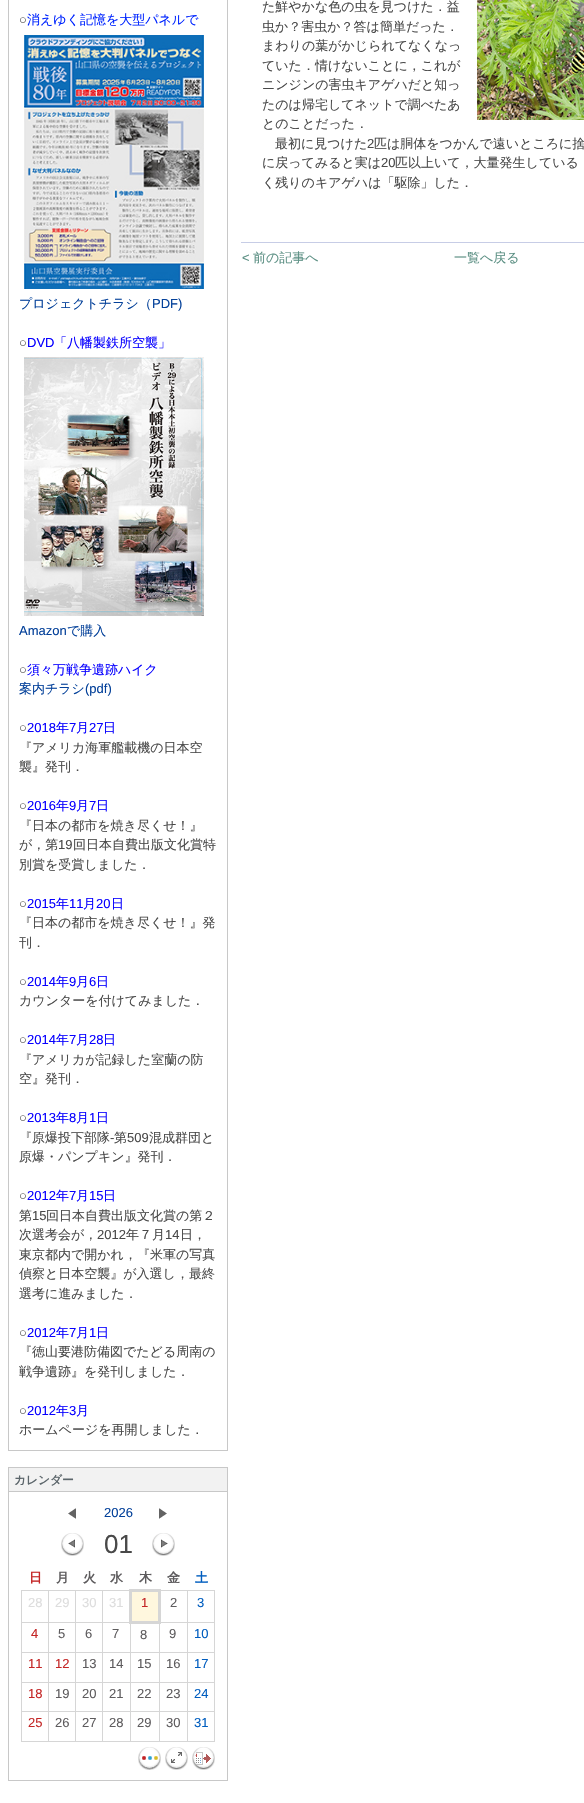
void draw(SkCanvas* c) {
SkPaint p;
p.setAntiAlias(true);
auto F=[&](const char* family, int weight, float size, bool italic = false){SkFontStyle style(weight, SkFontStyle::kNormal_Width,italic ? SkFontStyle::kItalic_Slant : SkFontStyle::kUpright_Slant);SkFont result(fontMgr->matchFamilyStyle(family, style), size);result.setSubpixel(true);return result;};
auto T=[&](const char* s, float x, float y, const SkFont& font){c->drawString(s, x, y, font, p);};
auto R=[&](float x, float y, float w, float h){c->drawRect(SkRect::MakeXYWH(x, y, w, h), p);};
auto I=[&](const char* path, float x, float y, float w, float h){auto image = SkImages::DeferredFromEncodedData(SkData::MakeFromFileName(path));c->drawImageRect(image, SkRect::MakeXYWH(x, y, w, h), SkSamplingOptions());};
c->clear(0xffffffff);
p.setColor(0xffc8c8c8);
R(227,0,1,1451);
R(8,1450,220,1);
R(8,0,1,1451);
auto f1 = F("Liberation Sans",400,13);
p.setColor(0xff494949);
T("○",19,24,f1);
auto f2 = F("WenQuanYi Zen Hei",500,13);
p.setColor(0xff0025ff);
T("消えゆく記憶を大型パネルで",27,24,f2);
I("1.png",24,35,180,254);
p.setColor(0xff04419a);
T("プロジェクトチラシ（",19,308,f2);
T("PDF)",152,308,f1);
p.setColor(0xff494949);
T("○",19,347,f1);
p.setColor(0xff0700ff);
T("DVD",27,347,f1);
T("「八幡製鉄所空襲」",54,347,f2);
I("2.png",24,357,180,259);
p.setColor(0xff04419a);
T("Amazon",19,635,f1);
T("で購入",67,635,f2);
p.setColor(0xff494949);
T("○",19,674,f1);
p.setColor(0xff0700ff);
T("須々万戦争遺跡ハイク",27,674,f2);
p.setColor(0xff04419a);
T("案内チラシ",19,693,f2);
T("(pdf)",85,693,f1);
p.setColor(0xff494949);
T("○",19,732,f1);
p.setColor(0xff0700ff);
T("2018",27,732,f1);
T("年",56,732,f2);
T("7",69,732,f1);
T("月",76,732,f2);
T("27",89,732,f1);
T("日",103,732,f2);
p.setColor(0xff494949);
T("『アメリカ海軍艦載機の日本空",19,752,f2);
T("襲』発刊．",19,771,f2);
T("○",19,810,f1);
p.setColor(0xff0700ff);
T("2016",27,810,f1);
T("年",56,810,f2);
T("9",69,810,f1);
T("月",76,810,f2);
T("7",89,810,f1);
T("日",96,810,f2);
p.setColor(0xff494949);
T("『日本の都市を焼き尽くせ！』",19,830,f2);
T("が，第",19,849,f2);
T("19",58,849,f1);
T("回日本自費出版文化賞特",73,849,f2);
T("別賞を受賞しました．",19,869,f2);
T("○",19,908,f1);
p.setColor(0xff0700ff);
T("2015",27,908,f1);
T("年",56,908,f2);
T("11",69,908,f1);
T("月",83,908,f2);
T("20",96,908,f1);
T("日",111,908,f2);
p.setColor(0xff494949);
T("『日本の都市を焼き尽くせ！』発",19,927,f2);
T("刊．",19,947,f2);
T("○",19,986,f1);
p.setColor(0xff0700ff);
T("2014",27,986,f1);
T("年",56,986,f2);
T("9",69,986,f1);
T("月",76,986,f2);
T("6",89,986,f1);
T("日",96,986,f2);
p.setColor(0xff494949);
T("カウンターを付けてみました．",19,1005,f2);
T("○",19,1044,f1);
p.setColor(0xff0700ff);
T("2014",27,1044,f1);
T("年",56,1044,f2);
T("7",69,1044,f1);
T("月",76,1044,f2);
T("28",89,1044,f1);
T("日",103,1044,f2);
p.setColor(0xff494949);
T("『アメリカが記録した室蘭の防",19,1064,f2);
T("空』発刊．",19,1083,f2);
T("○",19,1122,f1);
p.setColor(0xff0700ff);
T("2013",27,1122,f1);
T("年",56,1122,f2);
T("8",69,1122,f1);
T("月",76,1122,f2);
T("1",89,1122,f1);
T("日",96,1122,f2);
p.setColor(0xff494949);
T("『原爆投下部隊",19,1142,f2);
T("-",110,1142,f1);
T("第",114,1142,f2);
T("509",127,1142,f1);
T("混成群団と",149,1142,f2);
T("原爆・パンプキン』発刊．",19,1161,f2);
T("○",19,1200,f1);
p.setColor(0xff0700ff);
T("2012",27,1200,f1);
T("年",56,1200,f2);
T("7",69,1200,f1);
T("月",76,1200,f2);
T("15",89,1200,f1);
T("日",103,1200,f2);
p.setColor(0xff494949);
T("第",19,1220,f2);
T("15",32,1220,f1);
T("回日本自費出版文化賞の第２",46,1220,f2);
T("次選考会が，",19,1239,f2);
T("2012",97,1239,f1);
T("年７月",126,1239,f2);
T("14",165,1239,f1);
T("日，",180,1239,f2);
T("東京都内で開かれ，『米軍の写真",19,1259,f2);
T("偵察と日本空襲』が入選し，最終",19,1278,f2);
T("選考に進みました．",19,1298,f2);
T("○",19,1337,f1);
p.setColor(0xff0700ff);
T("2012",27,1337,f1);
T("年",56,1337,f2);
T("7",69,1337,f1);
T("月",76,1337,f2);
T("1",89,1337,f1);
T("日",96,1337,f2);
p.setColor(0xff494949);
T("『徳山要港防備図でたどる周南の",19,1356,f2);
T("戦争遺跡』を発刊しました．",19,1376,f2);
T("○",19,1415,f1);
p.setColor(0xff0700ff);
T("2012",27,1415,f1);
T("年",56,1415,f2);
T("3",69,1415,f1);
T("月",76,1415,f2);
p.setColor(0xff494949);
T("ホームページを再開しました．",19,1434,f2);
p.setColor(0xffc8c8c8);
R(8,1467,220,1);
R(227,1467,1,314);
R(8,1780,220,1);
R(8,1467,1,314);
p.setColor(0xfff2f2f2);
R(9,1468,218,23);
p.setColor(0xffc8c8c8);
R(8,1491,220,1);
auto f3 = F("WenQuanYi Zen Hei",700,11.75);
p.setColor(0xff5c666b);
T("カレンダー",14,1484,f3);
I("3.png",68,1508,8,11);
p.setColor(0xff04419a);
T("2026",104,1517,f1);
I("4.png",159,1508,8,11);
I("5.png",61,1533,23,23);
auto f4 = F("Liberation Sans",400,26);
p.setColor(0xff494949);
T("01",104,1553,f4);
I("6.png",152,1533,23,23);
auto f5 = F("WenQuanYi Zen Hei",700,13);
p.setColor(0xffc42626);
T("日",29,1582,f5);
p.setColor(0xff5e5c5e);
T("月",56,1582,f5);
T("火",83,1582,f5);
T("水",110,1582,f5);
T("木",139,1582,f5);
T("金",167,1582,f5);
p.setColor(0xff005dbf);
T("土",195,1582,f5);
p.setColor(0xffd6d6d6);
R(102,1590,29,1);
R(187,1652,28,1);
R(187,1682,28,1);
R(187,1711,28,1);
R(214,1711,1,31);
R(187,1741,28,1);
R(187,1711,1,31);
R(159,1711,29,1);
R(187,1682,1,30);
R(159,1682,29,1);
R(187,1652,1,31);
R(159,1652,29,1);
R(159,1741,29,1);
R(159,1711,1,31);
R(130,1711,30,1);
R(159,1682,1,30);
R(130,1682,30,1);
R(159,1652,1,31);
R(130,1652,30,1);
R(130,1741,30,1);
R(130,1711,1,31);
R(102,1711,29,1);
R(130,1682,1,30);
R(102,1682,29,1);
R(130,1652,1,31);
R(102,1652,29,1);
R(130,1622,1,31);
R(102,1622,29,1);
R(102,1741,29,1);
R(102,1711,1,31);
R(75,1711,28,1);
R(102,1682,1,30);
R(75,1682,28,1);
R(102,1652,1,31);
R(75,1652,28,1);
R(102,1622,1,31);
R(75,1622,28,1);
R(102,1590,1,33);
R(75,1590,28,1);
R(75,1741,28,1);
R(75,1711,1,31);
R(48,1711,28,1);
R(75,1682,1,30);
R(48,1682,28,1);
R(75,1652,1,31);
R(48,1652,28,1);
R(75,1622,1,31);
R(48,1622,28,1);
R(75,1590,1,33);
R(48,1590,28,1);
R(48,1741,28,1);
R(48,1711,1,31);
R(21,1711,28,1);
R(48,1682,1,30);
R(21,1682,28,1);
R(48,1652,1,31);
R(21,1652,28,1);
R(48,1622,1,31);
R(21,1622,28,1);
R(48,1590,1,33);
R(21,1590,28,1);
R(21,1741,28,1);
R(21,1711,1,31);
R(21,1682,1,30);
R(21,1652,1,31);
R(21,1622,1,31);
R(21,1590,1,33);
p.setColor(0xffdddddd);
T("28",28,1607,f1);
T("29",55,1607,f1);
T("30",82,1607,f1);
T("31",109,1607,f1);
p.setColor(0xfffff7de);
R(132,1592,26,29);
p.setColor(0xffd6d6d6);
R(187,1590,28,1);
R(187,1622,28,1);
R(187,1622,1,31);
R(159,1622,29,1);
R(187,1590,1,33);
R(159,1590,29,1);
R(129,1589,32,3);
R(159,1622,1,31);
R(158,1589,3,35);
R(129,1621,32,3);
R(129,1589,3,35);
p.setColor(0xffc42626);
T("1",141,1607,f1);
p.setColor(0xff5e5c5e);
T("2",170,1607,f1);
p.setColor(0xffd6d6d6);
R(214,1682,1,30);
R(214,1652,1,31);
R(214,1622,1,31);
R(214,1590,1,33);
p.setColor(0xff005dbf);
T("3",197,1607,f1);
p.setColor(0xffc42626);
T("4",31,1638,f1);
p.setColor(0xff5e5c5e);
T("5",58,1638,f1);
T("6",85,1638,f1);
T("7",112,1638,f1);
T("8",140,1639,f1);
T("9",169,1638,f1);
p.setColor(0xff005dbf);
T("10",194,1638,f1);
p.setColor(0xffc42626);
T("11",28,1668,f1);
T("12",55,1668,f1);
p.setColor(0xff5e5c5e);
T("13",82,1668,f1);
T("14",109,1668,f1);
T("15",137,1668,f1);
T("16",166,1668,f1);
p.setColor(0xff005dbf);
T("17",194,1668,f1);
p.setColor(0xffc42626);
T("18",28,1698,f1);
p.setColor(0xff5e5c5e);
T("19",55,1698,f1);
T("20",82,1698,f1);
T("21",109,1698,f1);
T("22",137,1698,f1);
T("23",166,1698,f1);
p.setColor(0xff005dbf);
T("24",194,1698,f1);
p.setColor(0xffc42626);
T("25",28,1727,f1);
p.setColor(0xff5e5c5e);
T("26",55,1727,f1);
T("27",82,1727,f1);
T("28",109,1727,f1);
T("29",137,1727,f1);
T("30",166,1727,f1);
p.setColor(0xff005dbf);
T("31",194,1727,f1);
I("7.png",138,1747,23,23);
I("8.png",165,1747,23,23);
I("9.png",192,1747,23,23);
p.setColor(0xff494949);
T("た鮮やかな色の虫を見つけた．益",262,11,f2);
I("10.png",477,0,107,120);
T("虫か？害虫か？答は簡単だった．",262,31,f2);
T("まわりの葉がかじられてなくなっ",262,50,f2);
T("ていた．情けないことに，これが",262,70,f2);
T("ニンジンの害虫キアゲハだと知っ",262,89,f2);
T("たのは帰宅してネットで調べたあ",262,109,f2);
T("とのことだった．",262,128,f2);
T("最初に見つけた",275,148,f2);
T("2",367,148,f1);
T("匹は胴体をつかんで遠いところに捨",374,148,f2);
T("に戻ってみると実は",262,167,f2);
T("20",381,167,f1);
T("匹以上いて，大量発生している",395,167,f2);
T("く残りのキアゲハは「駆除」した．",262,187,f2);
p.setColor(0xffc7cde6);
R(241,242,343,1);
p.setColor(0xff5c9084);
T("<",242,262,f1);
T("前の記事へ",253,262,f2);
T("一覧へ戻る",454,262,f2);
}
